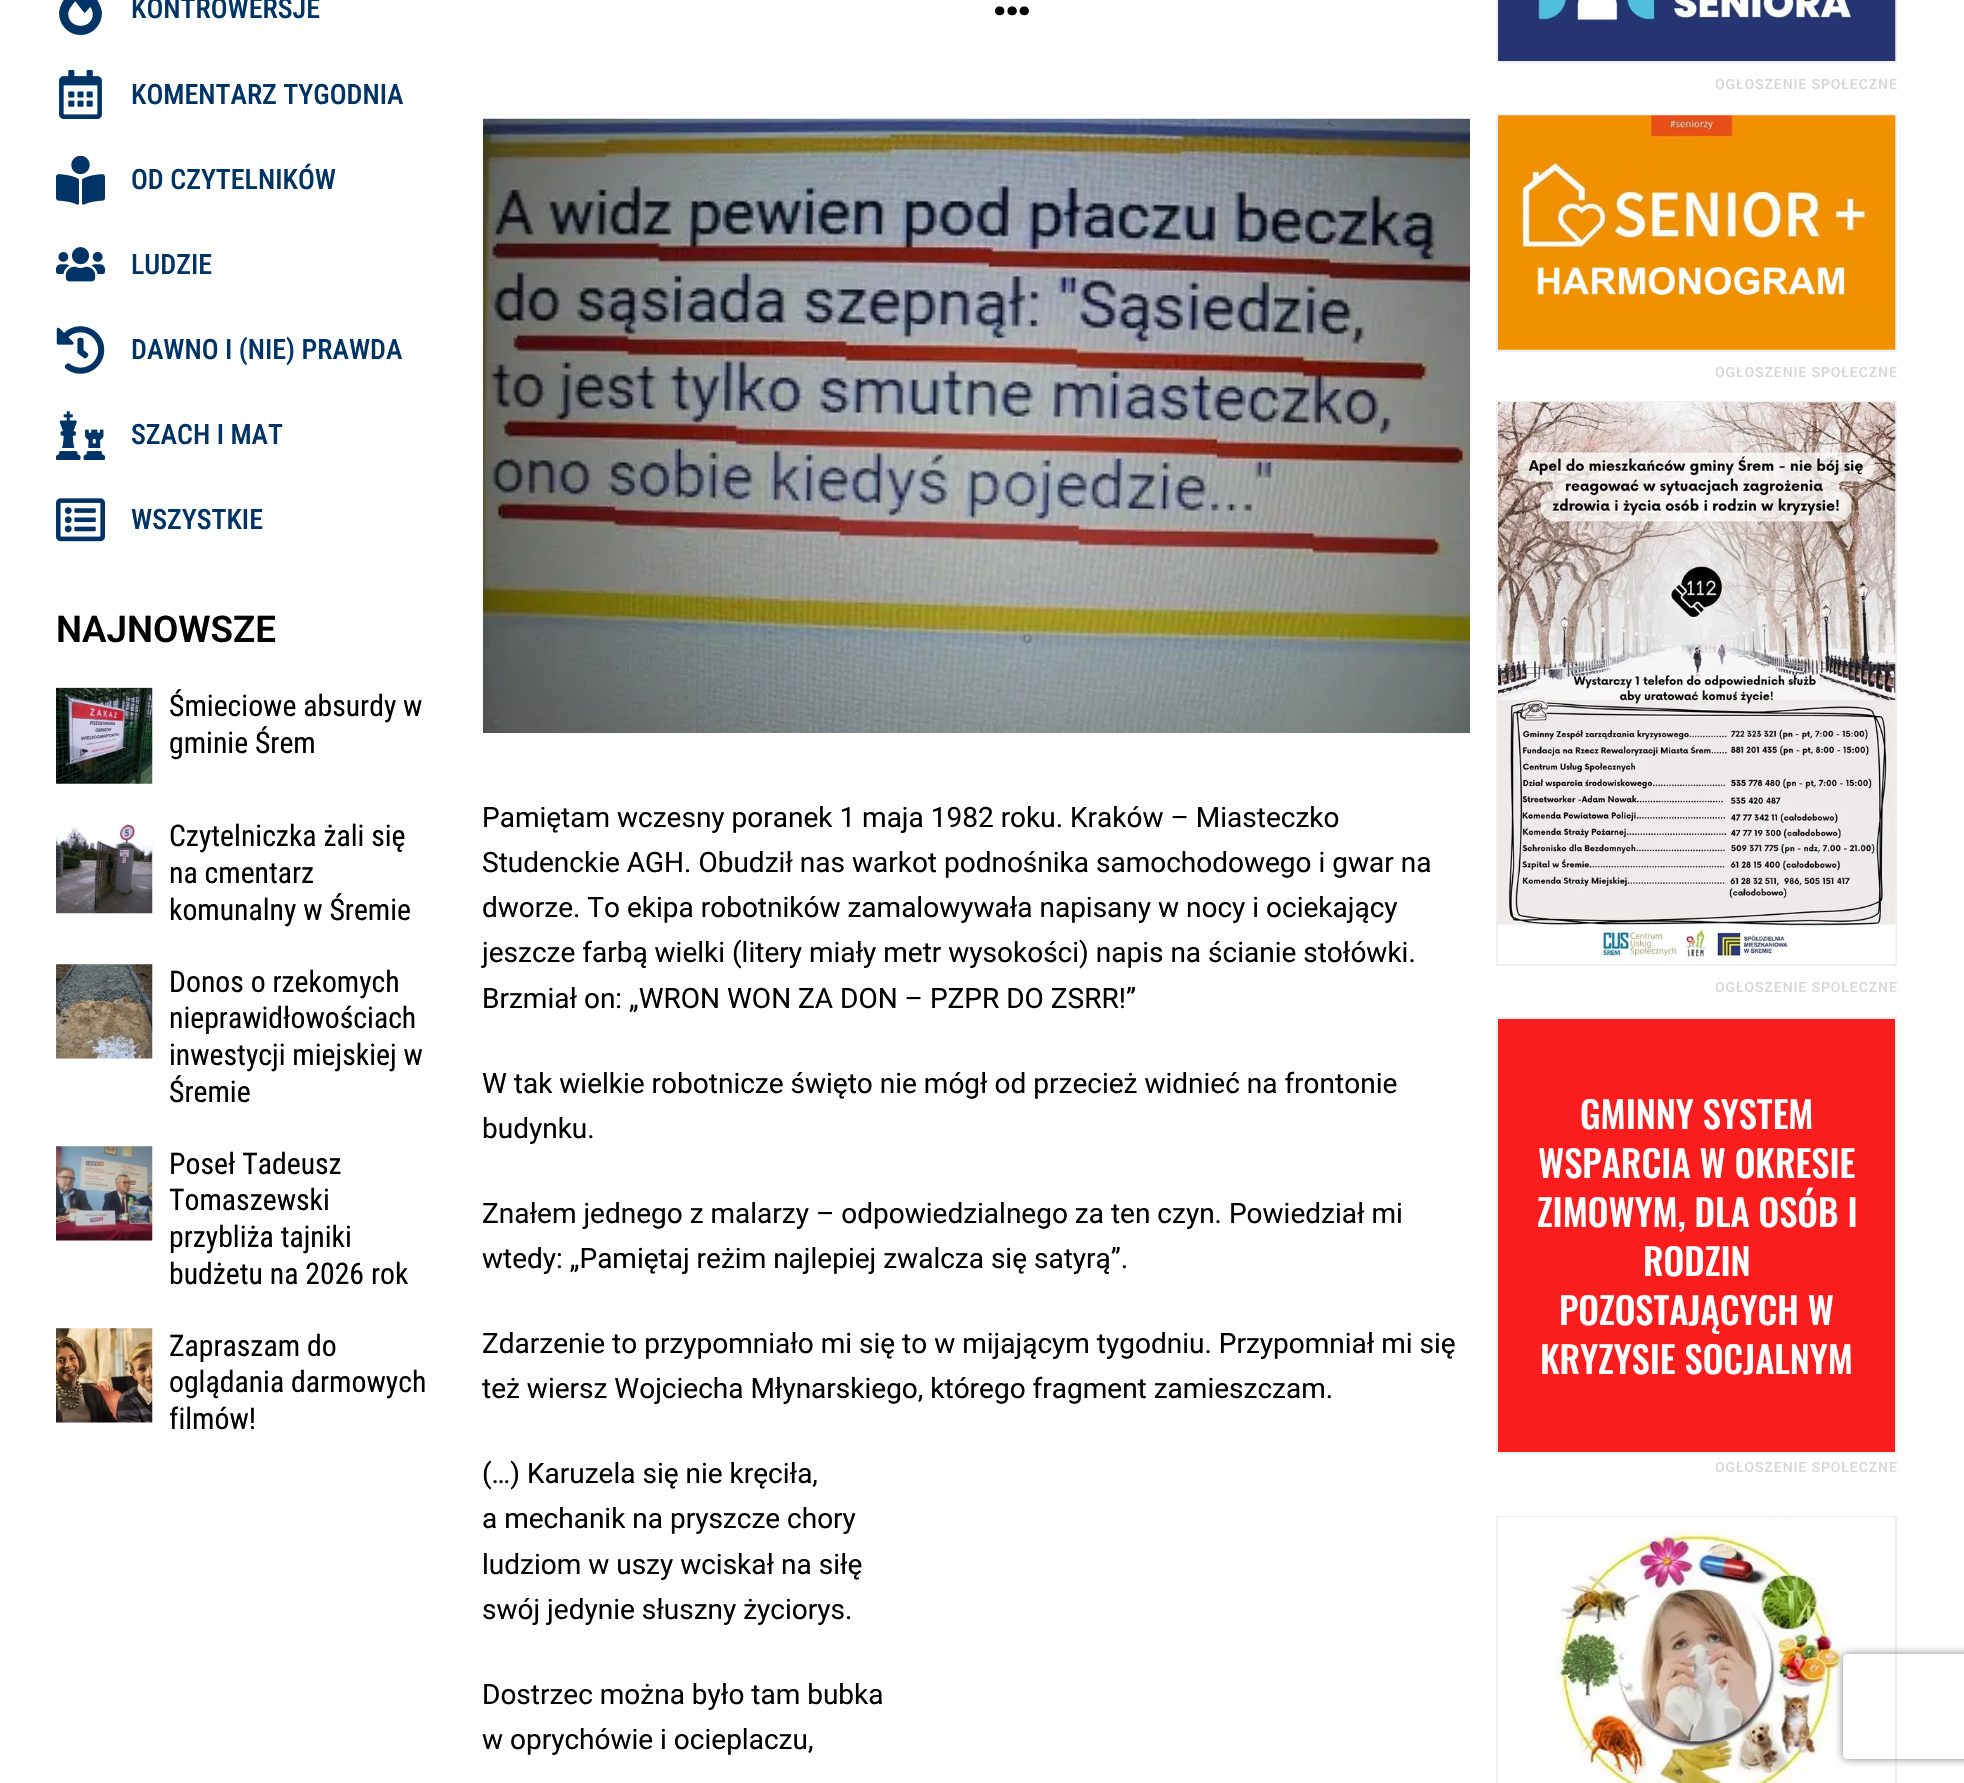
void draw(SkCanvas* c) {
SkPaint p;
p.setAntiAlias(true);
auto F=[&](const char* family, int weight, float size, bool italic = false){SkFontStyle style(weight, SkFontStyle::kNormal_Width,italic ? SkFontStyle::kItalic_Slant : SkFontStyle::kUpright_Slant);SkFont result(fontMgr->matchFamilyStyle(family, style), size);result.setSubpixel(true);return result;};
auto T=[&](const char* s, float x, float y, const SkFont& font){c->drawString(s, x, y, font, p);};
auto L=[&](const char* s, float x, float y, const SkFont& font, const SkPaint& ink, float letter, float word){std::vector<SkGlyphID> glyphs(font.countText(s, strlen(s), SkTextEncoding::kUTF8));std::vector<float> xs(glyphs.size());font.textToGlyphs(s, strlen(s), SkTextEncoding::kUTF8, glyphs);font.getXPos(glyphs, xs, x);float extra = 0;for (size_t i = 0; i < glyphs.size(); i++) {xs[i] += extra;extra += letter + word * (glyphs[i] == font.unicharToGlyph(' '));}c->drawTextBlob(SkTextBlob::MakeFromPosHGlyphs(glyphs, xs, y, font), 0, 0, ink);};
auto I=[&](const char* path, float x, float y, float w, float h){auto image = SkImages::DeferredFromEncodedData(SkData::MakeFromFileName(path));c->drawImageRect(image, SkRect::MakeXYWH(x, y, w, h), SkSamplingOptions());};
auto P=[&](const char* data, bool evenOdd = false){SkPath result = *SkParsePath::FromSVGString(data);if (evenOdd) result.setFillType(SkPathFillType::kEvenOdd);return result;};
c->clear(0xffffffff);
I("1.png",59,0,43,35);
auto f1 = F("Roboto Condensed",500,28);
p.setColor(0xff003366);
T("KONTROWERSJE",131,18,f1);
I("2.png",59,70,43,49);
T("KOMENTARZ TYGODNIA",131,104,f1);
I("3.png",56,156,49,49);
T("OD CZYTELNIKÓW",131,189,f1);
I("4.png",56,247,49,35);
T("LUDZIE",131,274,f1);
I("5.png",56,326,49,48);
T("DAWNO I (NIE) PRAWDA",131,359,f1);
I("6.png",56,411,49,49);
T("SZACH I MAT",131,444,f1);
I("7.png",56,498,49,44);
T("WSZYSTKIE",131,529,f1);
auto f2 = F("Roboto",600,36.75);
p.setColor(0xff000000);
T("NAJNOWSZE",56,642,f2);
I("8.png",56,687,97,97);
auto f3 = F("Roboto Condensed",400,29.75);
T("Śmieciowe absurdy w",169,716,f3);
T("gminie Śrem",169,753,f3);
I("9.png",56,822,97,92);
T("Czytelniczka żali się",169,846,f3);
T("na cmentarz",169,883,f3);
T("komunalny w Śremie",169,920,f3);
I("10.png",56,964,97,95);
T("Donos o rzekomych",169,992,f3);
T("nieprawidłowościach",169,1028,f3);
T("inwestycji miejskiej w",169,1065,f3);
T("Śremie",169,1102,f3);
I("11.png",56,1146,97,95);
T("Poseł Tadeusz",169,1174,f3);
T("Tomaszewski",169,1210,f3);
T("przybliża tajniki",169,1247,f3);
T("budżetu na 2026 rok",169,1284,f3);
I("12.png",56,1328,97,95);
T("Zapraszam do",169,1356,f3);
T("oglądania darmowych",169,1392,f3);
T("filmów!",169,1429,f3);
auto f4 = F("Roboto Condensed",600,63);
T("…",991,15,f4);
I("13.png",483,118,987,615);
auto f5 = F("Roboto",400,28);
T("Pamiętam wczesny poranek 1 maja 1982 roku. Kraków – Miasteczko",482,827,f5);
T("Studenckie AGH. Obudził nas warkot podnośnika samochodowego i gwar na",482,872,f5);
T("dworze. To ekipa robotników zamalowywała napisany w nocy i ociekający",482,917,f5);
T("jeszcze farbą wielki (litery miały metr wysokości) napis na ścianie stołówki.",482,962,f5);
T("Brzmiał on: „WRON WON ZA DON – PZPR DO ZSRR!”",482,1008,f5);
T("W tak wielkie robotnicze święto nie mógł od przecież widnieć na frontonie",482,1093,f5);
T("budynku.",482,1138,f5);
T("Znałem jednego z malarzy – odpowiedzialnego za ten czyn. Powiedział mi",482,1223,f5);
T("wtedy: „Pamiętaj reżim najlepiej zwalcza się satyrą”.",482,1268,f5);
T("Zdarzenie to przypomniało mi się to w mijającym tygodniu. Przypomniał mi się",482,1353,f5);
T("też wiersz Wojciecha Młynarskiego, którego fragment zamieszczam.",482,1398,f5);
T("(…) Karuzela się nie kręciła,",482,1483,f5);
T("a mechanik na pryszcze chory",482,1528,f5);
T("ludziom w uszy wciskał na siłę",482,1574,f5);
T("swój jedynie słuszny życiorys.",482,1619,f5);
T("Dostrzec można było tam bubka",482,1704,f5);
T("w oprychówie i ocieplaczu,",482,1749,f5);
p.setStroke(true);
p.setStrokeWidth(2);
p.setColor(0xfff0f0f0);
c->drawRect(SkRect::MakeXYWH(1497,-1,399,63),p);
I("14.png",1498,0,398,61);
auto f6 = F("Roboto",500,14);
p.setStroke(false);
p.setColor(0xffd7d7d7);
L("OGŁOSZENIE SPOŁECZNE",1715,89,f6,p,.9,0);
p.setStroke(true);
p.setColor(0xfff0f0f0);
c->drawRect(SkRect::MakeXYWH(1497,115,399,236),p);
I("15.png",1498,115,398,235);
p.setStroke(false);
p.setColor(0xffd7d7d7);
L("OGŁOSZENIE SPOŁECZNE",1715,377,f6,p,.9,0);
p.setStroke(true);
p.setColor(0xfff0f0f0);
c->drawRect(SkRect::MakeXYWH(1497,402,399,563),p);
I("16.png",1498,402,398,562);
p.setStroke(false);
p.setColor(0xffd7d7d7);
L("OGŁOSZENIE SPOŁECZNE",1715,992,f6,p,.9,0);
p.setColor(0xfff91d1d);
c->drawRect(SkRect::MakeXYWH(1497,1018,399,435),p);
p.setStroke(true);
p.setColor(0xfff0f0f0);
c->drawRect(SkRect::MakeXYWH(1497,1018,399,435),p);
auto f7 = F("Oswald",500,36.75);
p.setStroke(false);
p.setColor(0xffffffff);
T("GMINNY SYSTEM",1580,1129,f7);
T("WSPARCIA W OKRESIE",1538,1178,f7);
T("ZIMOWYM, DLA OSÓB I",1537,1227,f7);
T("RODZIN",1643,1276,f7);
T("POZOSTAJĄCYCH W",1559,1325,f7);
T("KRYZYSIE SOCJALNYM",1540,1374,f7);
p.setColor(0xffd7d7d7);
L("OGŁOSZENIE SPOŁECZNE",1715,1472,f6,p,.9,0);
p.setStroke(true);
p.setColor(0xfff0f0f0);
c->drawRect(SkRect::MakeXYWH(1497,1517,399,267),p);
I("17.png",1498,1517,397,266);
c->save();
c->clipPath(P("M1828 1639h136v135h-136zm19 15h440c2 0 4 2 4 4v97c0 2-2 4-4 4h-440c-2 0-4-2-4-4v-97c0-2 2-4 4-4z",true),true);
p.setStroke(false);
p.setColor(0xff808080);
p.setMaskFilter(SkMaskFilter::MakeBlur(kNormal_SkBlurStyle, 4.5));
c->drawRoundRect(SkRect::MakeXYWH(1843,1654,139,105),4,4,p);
p.setMaskFilter(nullptr);
c->restore();
}
